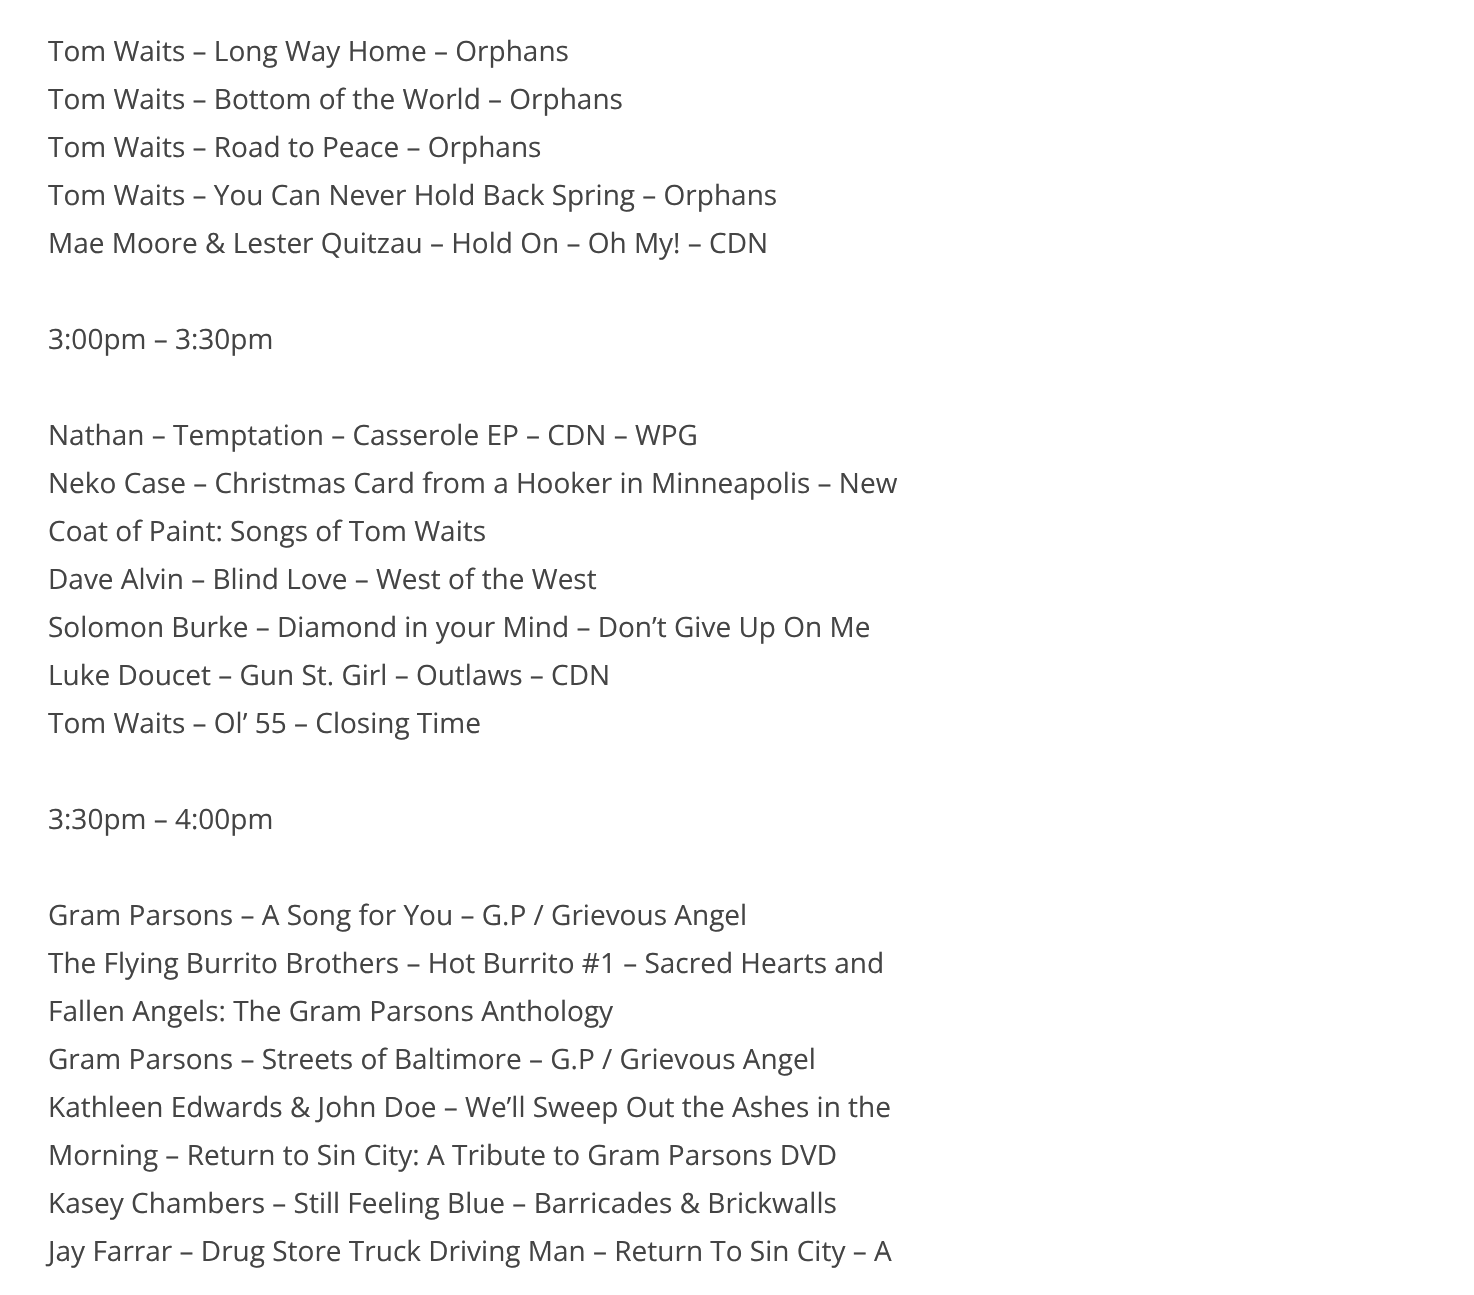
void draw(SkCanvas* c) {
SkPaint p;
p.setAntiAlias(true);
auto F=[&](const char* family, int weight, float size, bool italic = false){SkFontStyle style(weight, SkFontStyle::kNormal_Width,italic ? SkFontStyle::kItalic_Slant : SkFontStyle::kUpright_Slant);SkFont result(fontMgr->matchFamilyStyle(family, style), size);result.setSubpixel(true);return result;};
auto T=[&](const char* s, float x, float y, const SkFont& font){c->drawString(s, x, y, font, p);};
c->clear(0xffffffff);
auto f1 = F("Open Sans",400,28);
p.setColor(0xff444444);
T("Tom Waits – Long Way Home – Orphans",48,61,f1);
T("Tom Waits – Bottom of the World – Orphans",48,109,f1);
T("Tom Waits – Road to Peace – Orphans",48,157,f1);
T("Tom Waits – You Can Never Hold Back Spring – Orphans",48,205,f1);
T("Mae Moore & Lester Quitzau – Hold On – Oh My! – CDN",48,253,f1);
T("3:00pm – 3:30pm",48,349,f1);
T("Nathan – Temptation – Casserole EP – CDN – WPG",48,445,f1);
T("Neko Case – Christmas Card from a Hooker in Minneapolis – New",48,493,f1);
T("Coat of Paint: Songs of Tom Waits",48,541,f1);
T("Dave Alvin – Blind Love – West of the West",48,589,f1);
T("Solomon Burke – Diamond in your Mind – Don’t Give Up On Me",48,637,f1);
T("Luke Doucet – Gun St. Girl – Outlaws – CDN",48,685,f1);
T("Tom Waits – Ol’ 55 – Closing Time",48,733,f1);
T("3:30pm – 4:00pm",48,829,f1);
T("Gram Parsons – A Song for You – G.P / Grievous Angel",48,925,f1);
T("The Flying Burrito Brothers – Hot Burrito #1 – Sacred Hearts and",48,973,f1);
T("Fallen Angels: The Gram Parsons Anthology",48,1021,f1);
T("Gram Parsons – Streets of Baltimore – G.P / Grievous Angel",48,1069,f1);
T("Kathleen Edwards & John Doe – We’ll Sweep Out the Ashes in the",48,1117,f1);
T("Morning – Return to Sin City: A Tribute to Gram Parsons DVD",48,1165,f1);
T("Kasey Chambers – Still Feeling Blue – Barricades & Brickwalls",48,1213,f1);
T("Jay Farrar – Drug Store Truck Driving Man – Return To Sin City – A",48,1261,f1);
}
